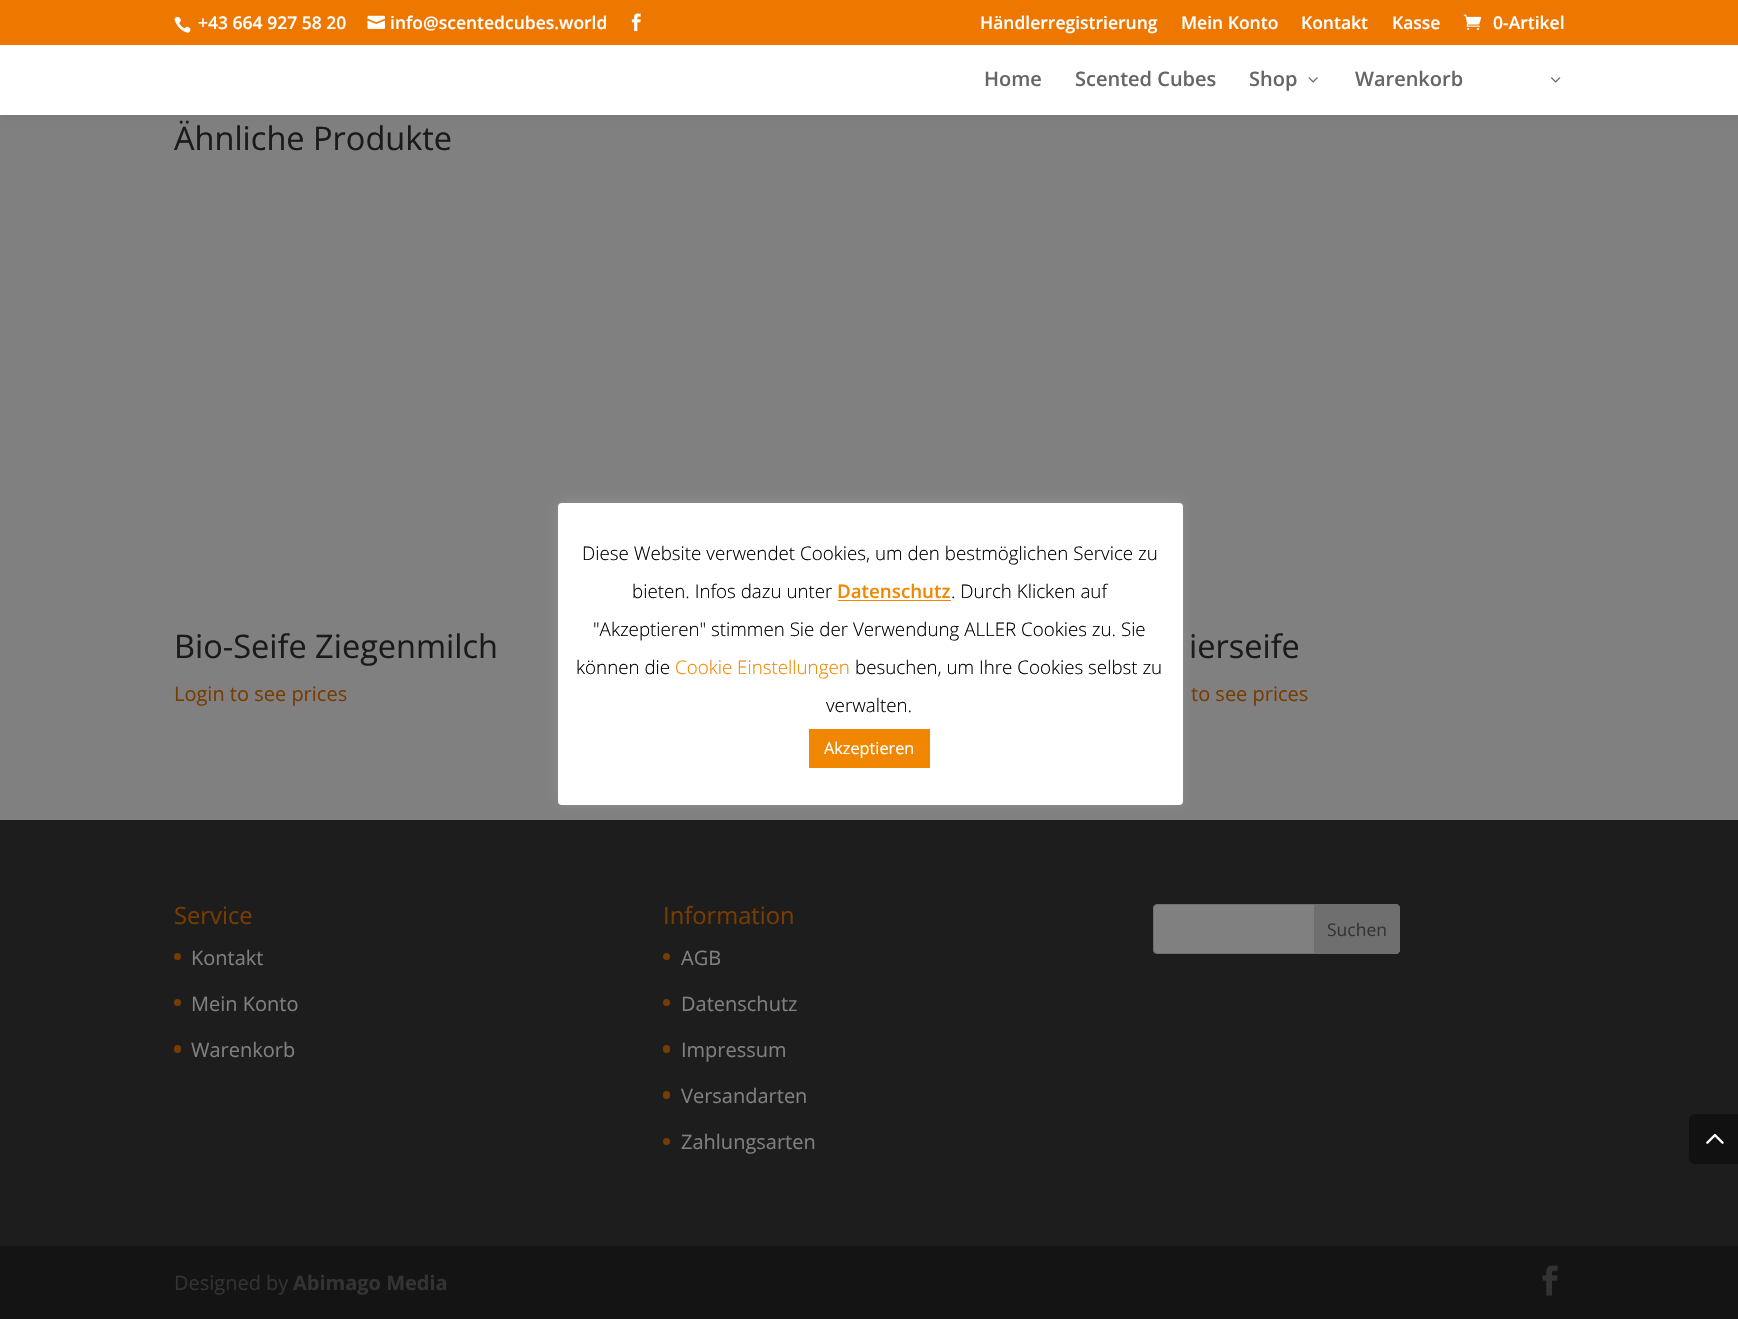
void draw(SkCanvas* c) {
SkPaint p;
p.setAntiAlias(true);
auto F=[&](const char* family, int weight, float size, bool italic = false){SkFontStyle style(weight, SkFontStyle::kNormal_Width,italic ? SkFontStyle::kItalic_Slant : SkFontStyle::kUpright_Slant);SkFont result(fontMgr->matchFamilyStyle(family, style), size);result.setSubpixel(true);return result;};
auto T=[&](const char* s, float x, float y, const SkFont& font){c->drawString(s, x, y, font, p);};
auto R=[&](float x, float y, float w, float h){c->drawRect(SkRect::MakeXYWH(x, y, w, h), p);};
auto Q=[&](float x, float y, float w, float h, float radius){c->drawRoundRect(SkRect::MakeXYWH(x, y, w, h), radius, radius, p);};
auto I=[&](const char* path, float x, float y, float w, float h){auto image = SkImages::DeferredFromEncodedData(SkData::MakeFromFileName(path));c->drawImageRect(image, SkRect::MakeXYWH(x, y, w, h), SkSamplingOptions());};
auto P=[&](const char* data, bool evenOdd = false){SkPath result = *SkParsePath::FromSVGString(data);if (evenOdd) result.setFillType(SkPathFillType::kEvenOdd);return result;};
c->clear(0xff808080);
p.setColor(0x1a000000);
p.setMaskFilter(SkMaskFilter::MakeBlur(kNormal_SkBlurStyle, 4.5));
c->drawRect(SkRect::MakeXYWH(0,45,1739,70),p);
p.setMaskFilter(nullptr);
p.setColor(0xffee7700);
R(0,0,1738,45);
I("1.png",174,16,17,17);
auto f1 = F("Open Sans",600,17.5);
p.setColor(0xffffffff);
T("+43 664 927 58 20",198,29,f1);
I("2.png",367,15,18,14);
T("info@scentedcubes.world",390,29,f1);
I("3.png",631,13,10,19);
T("Händlerregistrierung",980,29,f1);
T("Mein Konto",1181,29,f1);
T("Kontakt",1301,29,f1);
T("Kasse",1392,29,f1);
I("4.png",1463,14,19,16);
T("0-Artikel",1493,29,f1);
R(0,45,1738,70);
auto f2 = F("Open Sans",600,20);
p.setColor(0xff666666);
T("Home",984,86,f2);
T("Scented Cubes",1075,86,f2);
T("Shop",1249,86,f2);
I("5.png",1308,77,10,6);
T("Warenkorb",1355,86,f2);
I("6.png",1551,77,10,6);
auto f3 = F("Open Sans",400,32.5);
p.setColor(0xff1a1a1a);
T("Ähnliche Produkte",174,150,f3);
T("Bio-Seife Ziegenmilch",174,658,f3);
auto f4 = F("Open Sans",400,20);
p.setColor(0xff773c00);
T("Login to see prices",174,701,f4);
p.setColor(0xff1a1a1a);
T("ierseife",1189,658,f3);
p.setColor(0xff773c00);
T("to see prices",1191,701,f4);
p.setColor(0xff1d1d1d);
R(0,820,1738,426);
auto f5 = F("Open Sans",400,23.75);
p.setColor(0xff773c00);
T("Service",174,924,f5);
c->drawCircle(177.5,956.5,3.5,p);
p.setColor(0xff808080);
T("Kontakt",191,965,f4);
p.setColor(0xff773c00);
c->drawCircle(177.5,1002.5,3.5,p);
p.setColor(0xff808080);
T("Mein Konto",191,1011,f4);
p.setColor(0xff773c00);
Q(174,1045,7,8,3.5);
p.setColor(0xff808080);
T("Warenkorb",191,1057,f4);
p.setColor(0xff773c00);
T("Information",663,924,f5);
c->drawCircle(666.5,956.5,3.5,p);
p.setColor(0xff808080);
T("AGB",681,965,f4);
p.setColor(0xff773c00);
c->drawCircle(666.5,1002.5,3.5,p);
p.setColor(0xff808080);
T("Datenschutz",681,1011,f4);
p.setColor(0xff773c00);
Q(663,1045,7,8,3.5);
p.setColor(0xff808080);
T("Impressum",681,1057,f4);
p.setColor(0xff773c00);
Q(663,1091,7,8,3.5);
p.setColor(0xff808080);
T("Versandarten",681,1103,f4);
p.setColor(0xff773c00);
c->drawCircle(666.5,1141.5,3.5,p);
p.setColor(0xff808080);
T("Zahlungsarten",681,1149,f4);
c->drawRoundRect(SkRect::MakeXYWH(1153.5,904.5,246,49),3.5,3.5,p);
p.setStroke(true);
p.setStrokeWidth(1);
p.setColor(0xff6f6f6f);
c->drawRoundRect(SkRect::MakeXYWH(1153.5,904.5,246,49),3.5,3.5,p);
p.setStroke(false);
c->drawPath(P("M1314.5 904.5h81.5c2 0 3.5 1.5 3.5 3.5v42c0 2-1.5 3.5-3.5 3.5h-81.5z"),p);
p.setStroke(true);
c->drawPath(P("M1314.5 904.5h81.5c2 0 3.5 1.5 3.5 3.5v42c0 2-1.5 3.5-3.5 3.5h-81.5z"),p);
auto f6 = F("Open Sans",400,17.5);
p.setStroke(false);
p.setColor(0xff333333);
T("Suchen",1327,936,f6);
p.setColor(0xff141414);
R(0,1246,1738,73);
p.setColor(0xff333333);
T("Designed by",174,1290,f4);
auto f7 = F("Open Sans",700,20);
T("Abimago Media",293,1290,f7);
I("7.png",1542,1265,16,31);
p.setColor(0xff111111);
c->drawPath(P("M1695 1114h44v50h-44c-3.5 0-6-2.5-6-6v-38c0-3.5 2.5-6 6-6z"),p);
I("8.png",1706,1133,18,11);
p.setColor(0x4dacabab);
p.setMaskFilter(SkMaskFilter::MakeBlur(kNormal_SkBlurStyle, 6));
c->drawRoundRect(SkRect::MakeXYWH(558,501,625,303),4,4,p);
p.setMaskFilter(nullptr);
p.setColor(0xffffffff);
Q(558,503,625,302,4);
auto f8 = F("Open Sans",300,18.75);
p.setColor(0xff000000);
T("Diese Website verwendet Cookies, um den bestmöglichen Service zu",582,560,f8);
T("bieten. Infos dazu unter",632,598,f8);
auto f9 = F("Open Sans",600,18.75);
p.setColor(0xfff18700);
T("Datenschutz",837,598,f9);
R(838,600,113,1);
p.setColor(0xff000000);
T(". Durch Klicken auf",951,598,f8);
T("\"Akzeptieren\" stimmen Sie der Verwendung ALLER Cookies zu. Sie",593,636,f8);
T("können die",576,674,f8);
p.setColor(0xfff18700);
T("Cookie Einstellungen",675,674,f8);
p.setColor(0xff000000);
T("besuchen, um Ihre Cookies selbst zu",855,674,f8);
T("verwalten.",826,712,f8);
p.setColor(0xfff18700);
R(809,729,121,39);
auto f10 = F("Open Sans",400,16.25);
p.setColor(0xffffffff);
T("Akzeptieren",824,754,f10);
}
